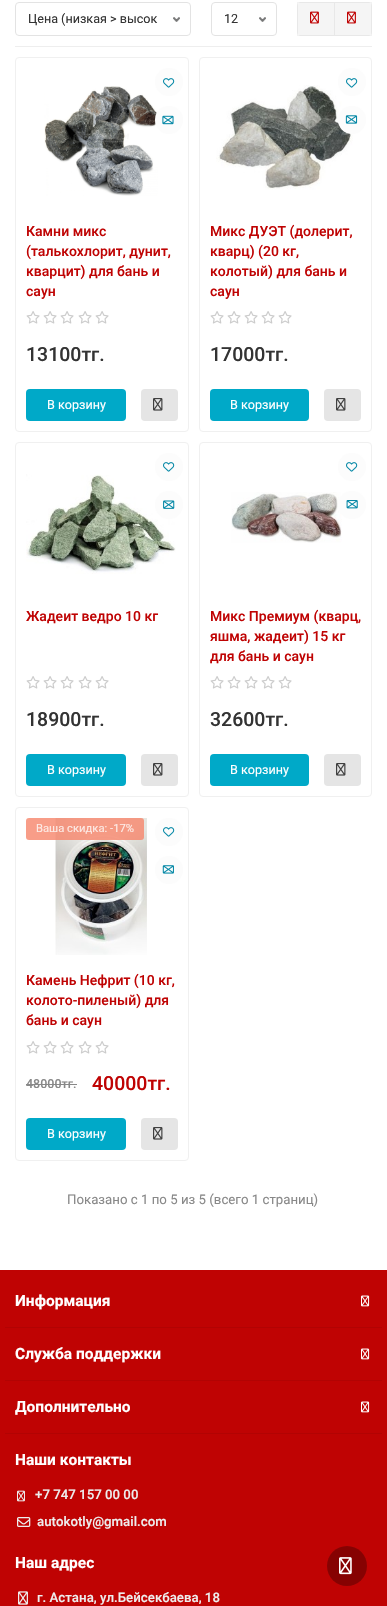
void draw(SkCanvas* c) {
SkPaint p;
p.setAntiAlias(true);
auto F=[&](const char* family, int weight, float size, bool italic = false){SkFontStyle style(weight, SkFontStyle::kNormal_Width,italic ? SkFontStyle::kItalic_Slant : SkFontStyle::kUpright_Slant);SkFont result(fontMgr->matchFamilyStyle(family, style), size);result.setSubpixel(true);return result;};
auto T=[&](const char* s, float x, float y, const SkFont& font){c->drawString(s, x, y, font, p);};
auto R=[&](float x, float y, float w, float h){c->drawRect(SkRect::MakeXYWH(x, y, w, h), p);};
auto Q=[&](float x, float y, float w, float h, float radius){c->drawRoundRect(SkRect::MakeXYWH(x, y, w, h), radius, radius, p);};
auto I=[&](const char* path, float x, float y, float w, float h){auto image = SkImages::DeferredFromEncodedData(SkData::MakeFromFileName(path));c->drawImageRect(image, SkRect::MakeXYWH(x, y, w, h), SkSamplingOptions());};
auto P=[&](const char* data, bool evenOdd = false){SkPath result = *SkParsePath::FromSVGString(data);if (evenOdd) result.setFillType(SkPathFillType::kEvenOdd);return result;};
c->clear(0xffffffff);
I("1.png",173,17,7,5);
p.setStroke(true);
p.setStrokeWidth(1);
p.setColor(0xffe3e3e3);
c->drawRoundRect(SkRect::MakeXYWH(15.5,2.5,175,33),3.5,3.5,p);
auto f1 = F("Roboto",400,12.6);
p.setStroke(false);
p.setColor(0xff333333);
T("Цена (низкая > высок",28,23,f1);
I("1.png",259,17,7,5);
p.setStroke(true);
p.setColor(0xffe3e3e3);
c->drawRoundRect(SkRect::MakeXYWH(211.5,2.5,65,33),3.5,3.5,p);
p.setStroke(false);
p.setColor(0xff333333);
T("12",224,23,f1);
p.setColor(0xfff5f5f5);
c->drawPath(P("M301 2h34v34h-34c-2 0-4-2-4-4v-26c0-2 2-4 4-4z"),p);
p.setStroke(true);
p.setColor(0x0d000000);
c->drawRect(SkRect::MakeXYWH(297.5,2.5,37,33),p);
I("2.png",310,11,9,13);
p.setStroke(false);
p.setColor(0xfff5f5f5);
c->drawPath(P("M334 2h34c2 0 4 2 4 4v26c0 2-2 4-4 4h-34z"),p);
p.setStroke(true);
p.setColor(0x0d000000);
c->drawRect(SkRect::MakeXYWH(334.5,2.5,37,33),p);
I("2.png",347,11,9,13);
p.setStroke(false);
p.setColor(0xffeeeeee);
R(15,46,357,1);
p.setStroke(true);
p.setColor(0xfff0f0f0);
c->drawRoundRect(SkRect::MakeXYWH(15.5,57.5,173,374),3.5,3.5,p);
I("3.png",44,86,114,110);
auto f2 = F("Roboto",500,14);
p.setStroke(false);
p.setColor(0xffbf0303);
T("Камни микс",26,236,f2);
T("(талькохлорит, дунит,",26,256,f2);
T("кварцит) для бань и",26,276,f2);
T("саун",26,296,f2);
I("4.png",26,311,14,13);
I("4.png",43,311,14,13);
I("4.png",60,311,14,13);
I("4.png",78,311,14,13);
I("4.png",95,311,14,13);
auto f3 = F("Roboto",500,19.5);
p.setColor(0xff333333);
T("13100тг.",26,361,f3);
p.setColor(0xfffcfcfc);
c->drawCircle(169,82,14,p);
I("5.png",163,78,12,10);
c->drawCircle(169,120,14,p);
I("6.png",162,115,12,10);
p.setColor(0xff00a9c8);
Q(26,389,100,32,4);
p.setColor(0xffffffff);
T("В корзину",47,409,f1);
p.setColor(0xffe5e5e5);
Q(141,389,37,32,4);
I("7.png",153,398,10,13);
p.setStroke(true);
p.setColor(0xfff0f0f0);
c->drawRoundRect(SkRect::MakeXYWH(199.5,57.5,172,374),3.5,3.5,p);
I("8.png",216,85,137,105);
p.setStroke(false);
p.setColor(0xffbf0303);
T("Микс ДУЭТ (долерит,",210,236,f2);
T("кварц) (20 кг,",210,256,f2);
T("колотый) для бань и",210,276,f2);
T("саун",210,296,f2);
I("4.png",210,311,14,13);
I("4.png",227,311,14,13);
I("4.png",244,311,14,13);
I("4.png",261,311,14,13);
I("4.png",278,311,14,13);
p.setColor(0xff333333);
T("17000тг.",210,361,f3);
p.setColor(0xfffcfcfc);
c->drawCircle(352,82,14,p);
I("5.png",346,78,12,10);
c->drawCircle(352,120,14,p);
I("9.png",345,115,13,9);
p.setColor(0xff00a9c8);
Q(210,389,99,32,4);
p.setColor(0xffffffff);
T("В корзину",230,409,f1);
p.setColor(0xffe5e5e5);
Q(324,389,37,32,4);
I("7.png",336,398,10,13);
p.setStroke(true);
p.setColor(0xfff0f0f0);
c->drawRoundRect(SkRect::MakeXYWH(15.5,442.5,173,354),3.5,3.5,p);
I("10.png",26,474,150,100);
p.setStroke(false);
p.setColor(0xffbf0303);
T("Жадеит ведро 10 кг",26,621,f2);
I("4.png",26,676,14,13);
I("4.png",43,676,14,13);
I("4.png",60,676,14,13);
I("4.png",78,676,14,13);
I("4.png",95,676,14,13);
p.setColor(0xff333333);
T("18900тг.",26,726,f3);
p.setColor(0xfffcfcfc);
c->drawCircle(169,467,14,p);
I("5.png",163,462,12,10);
c->drawCircle(169,505,14,p);
I("11.png",163,500,12,9);
p.setColor(0xff00a9c8);
Q(26,754,100,32,4);
p.setColor(0xffffffff);
T("В корзину",47,774,f1);
p.setColor(0xffe5e5e5);
Q(141,754,37,32,4);
I("7.png",153,763,10,13);
p.setStroke(true);
p.setColor(0xfff0f0f0);
c->drawRoundRect(SkRect::MakeXYWH(199.5,442.5,172,354),3.5,3.5,p);
I("12.png",231,492,111,51);
p.setStroke(false);
p.setColor(0xffbf0303);
T("Микс Премиум (кварц,",210,621,f2);
T("яшма, жадеит) 15 кг",210,641,f2);
T("для бань и саун",210,661,f2);
I("4.png",210,676,14,13);
I("4.png",227,676,14,13);
I("4.png",244,676,14,13);
I("4.png",261,676,14,13);
I("4.png",278,676,14,13);
p.setColor(0xff333333);
T("32600тг.",210,726,f3);
p.setColor(0xfffcfcfc);
c->drawCircle(352,467,14,p);
I("5.png",346,462,12,10);
c->drawCircle(352,505,14,p);
I("13.png",346,500,12,9);
p.setColor(0xff00a9c8);
Q(210,754,99,32,4);
p.setColor(0xffffffff);
T("В корзину",230,774,f1);
p.setColor(0xffe5e5e5);
Q(324,754,37,32,4);
I("7.png",336,763,10,13);
p.setStroke(true);
p.setColor(0xfff0f0f0);
c->drawRoundRect(SkRect::MakeXYWH(15.5,807.5,173,353),3.5,3.5,p);
I("14.png",55,818,92,137);
p.setStroke(false);
p.setColor(0xccf6846a);
Q(26,818,118,22,3);
auto f4 = F("Roboto",400,11.25);
p.setColor(0xfffdebe6);
T("Ваша скидка: -17%",36,832,f4);
p.setColor(0xffbf0303);
T("Камень Нефрит (10 кг,",26,985,f2);
T("колото-пиленый) для",26,1005,f2);
T("бань и саун",26,1025,f2);
I("4.png",26,1041,14,13);
I("4.png",43,1041,14,13);
I("4.png",60,1041,14,13);
I("4.png",78,1041,14,13);
I("4.png",95,1041,14,13);
auto f5 = F("Roboto",500,12.5);
p.setColor(0xff888888);
T("48000тг.",26,1088,f5);
R(26,1084,51,1);
p.setColor(0xffbf0303);
T("40000тг.",92,1090,f3);
p.setColor(0xfffcfcfc);
c->drawCircle(169,832,14,p);
I("5.png",163,827,12,10);
c->drawCircle(169,870,14,p);
I("15.png",162,865,12,9);
p.setColor(0xff00a9c8);
Q(26,1118,100,32,4);
p.setColor(0xffffffff);
T("В корзину",47,1138,f1);
p.setColor(0xffe5e5e5);
Q(141,1118,37,32,4);
I("7.png",153,1127,10,13);
auto f6 = F("Roboto",400,13.25);
p.setColor(0xff888888);
T("Показано с 1 по 5 из 5 (всего 1 страниц)",67,1204,f6);
p.setColor(0xffbf0303);
R(0,1270,387,336);
auto f7 = F("Roboto",700,15.5);
p.setColor(0xffffffff);
T("Информация",15,1306,f7);
I("16.png",361,1295,9,12);
p.setColor(0xffb20303);
R(5,1327,377,1);
p.setColor(0xffffffff);
T("Служба поддержки",15,1359,f7);
I("16.png",361,1348,9,12);
p.setColor(0xffb20303);
R(5,1380,377,1);
p.setColor(0xffffffff);
T("Дополнительно",15,1412,f7);
I("16.png",361,1401,9,12);
p.setColor(0xffb20303);
R(5,1433,377,1);
p.setColor(0xffffffff);
T("Наши контакты",15,1465,f7);
I("17.png",17,1490,8,12);
auto f8 = F("Roboto",500,13.25);
p.setColor(0xffeeeeee);
T("+7 747 157 00 00",35,1499,f8);
I("18.png",17,1517,14,10);
T("autokotly@gmail.com",37,1526,f8);
p.setColor(0xffffffff);
T("Наш адрес",15,1568,f7);
I("19.png",18,1591,10,14);
p.setColor(0xffeeeeee);
T("г. Астана, ул.Бейсекбаева, 18",37,1602,f8);
p.setColor(0xff860202);
c->drawCircle(347,1566,20,p);
I("20.png",339,1557,13,18);
}
